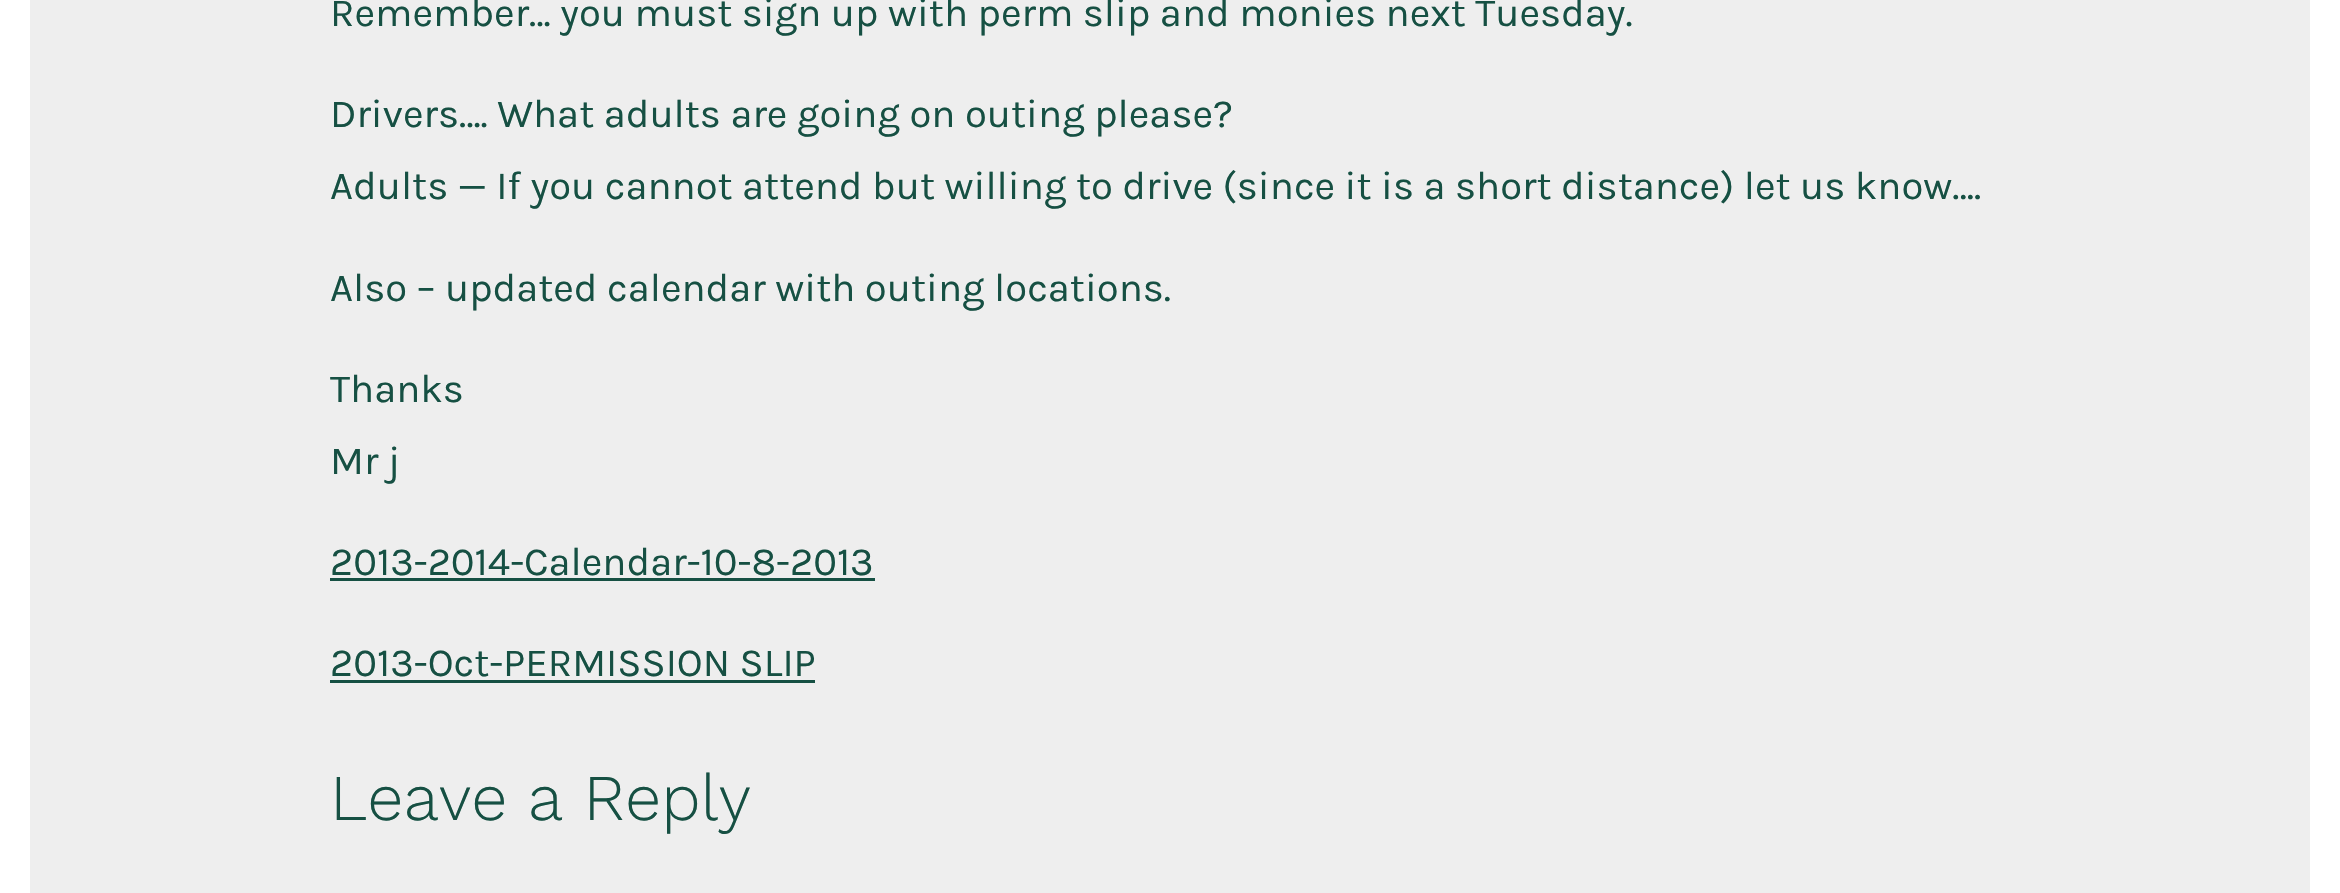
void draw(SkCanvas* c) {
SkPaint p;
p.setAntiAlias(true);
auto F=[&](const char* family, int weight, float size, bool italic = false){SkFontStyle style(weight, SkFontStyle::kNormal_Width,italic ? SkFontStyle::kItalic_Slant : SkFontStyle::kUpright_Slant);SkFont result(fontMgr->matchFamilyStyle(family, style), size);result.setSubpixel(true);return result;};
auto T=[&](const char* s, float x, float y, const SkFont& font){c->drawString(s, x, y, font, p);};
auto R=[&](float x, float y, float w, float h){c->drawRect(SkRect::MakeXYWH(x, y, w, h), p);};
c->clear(0xffeeeeee);
p.setColor(0xffffffff);
R(2310,0,30,893);
R(0,0,30,893);
auto f1 = F("Karla",400,40);
p.setColor(0xff165043);
T("Remember… you must sign up with perm slip and monies next Tuesday.",330,26,f1);
T("Drivers…. What adults are going on outing please?",330,127,f1);
T("Adults — If you cannot attend but willing to drive (since it is a short distance) let us know….",330,199,f1);
T("Also – updated calendar with outing locations.",330,301,f1);
T("Thanks",330,402,f1);
T("Mr j",330,474,f1);
T("2013-2014-Calendar-10-8-2013",330,575,f1);
R(330,578,545,3);
T("2013-Oct-PERMISSION SLIP",330,676,f1);
R(330,680,485,3);
auto f2 = F("Work Sans",300,65);
T("Leave a Reply",330,820,f2);
}
